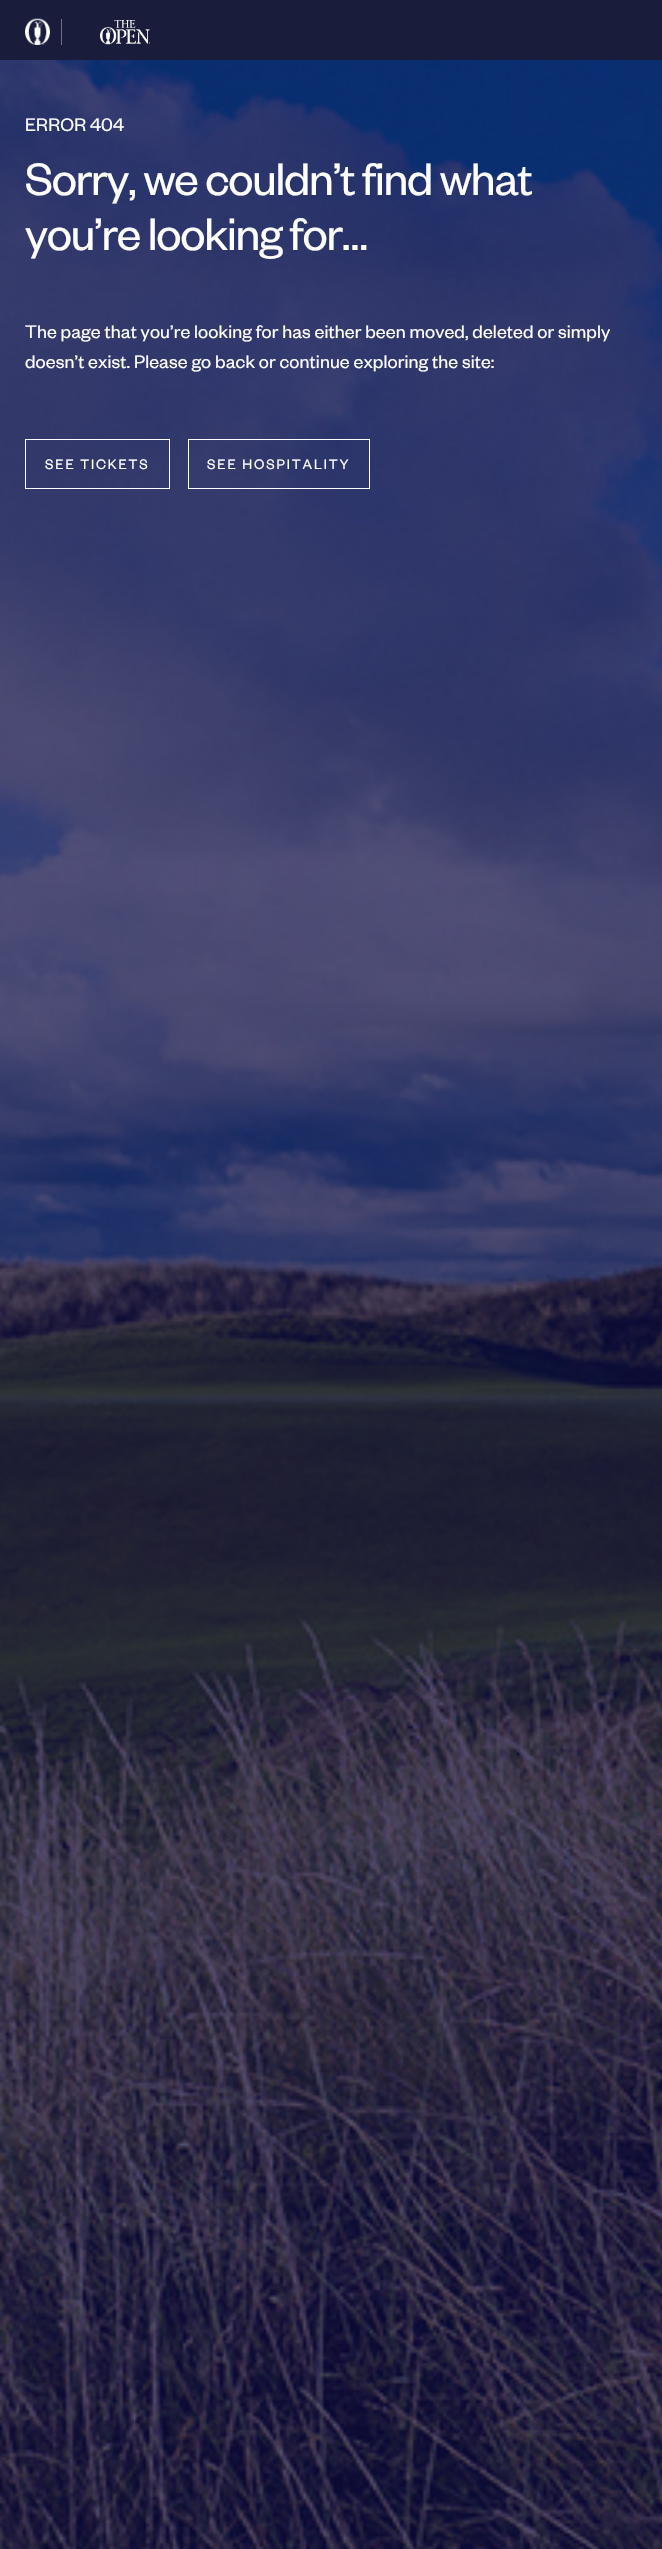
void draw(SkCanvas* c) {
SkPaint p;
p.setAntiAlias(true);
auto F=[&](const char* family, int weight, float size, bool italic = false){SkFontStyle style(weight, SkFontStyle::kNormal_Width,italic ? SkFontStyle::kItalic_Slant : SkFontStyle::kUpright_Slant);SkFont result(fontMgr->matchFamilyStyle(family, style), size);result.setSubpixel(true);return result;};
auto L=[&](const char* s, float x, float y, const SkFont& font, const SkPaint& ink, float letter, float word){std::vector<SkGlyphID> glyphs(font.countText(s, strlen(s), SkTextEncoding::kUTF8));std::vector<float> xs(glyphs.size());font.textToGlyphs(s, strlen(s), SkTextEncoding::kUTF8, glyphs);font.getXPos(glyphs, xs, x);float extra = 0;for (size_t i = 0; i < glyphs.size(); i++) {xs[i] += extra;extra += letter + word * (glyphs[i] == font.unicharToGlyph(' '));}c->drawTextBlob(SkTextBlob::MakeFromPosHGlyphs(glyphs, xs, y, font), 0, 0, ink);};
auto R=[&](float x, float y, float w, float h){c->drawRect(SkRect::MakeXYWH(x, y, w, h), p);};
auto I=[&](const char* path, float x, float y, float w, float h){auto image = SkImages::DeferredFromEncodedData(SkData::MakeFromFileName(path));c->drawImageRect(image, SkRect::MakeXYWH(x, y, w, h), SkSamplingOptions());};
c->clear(0xff1a1c3c);
I("1.png",25,18,25,27);
p.setColor(0xff6f7084);
R(61,19,1,26);
I("2.png",100,20,50,25);
I("3.png",0,60,662,2489);
auto f1 = F("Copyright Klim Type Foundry",400,20);
p.setColor(0xffffffff);
L("ERROR 404",25,131,f1,p,.12,0);
auto f2 = F("Copyright Klim Type Foundry",400,50);
L("Sorry, we couldn’t find what",25,195,f2,p,-1.25,0);
L("you’re looking for…",25,250,f2,p,-1.25,0);
L("The page that you’re looking for has either been moved, deleted or simply",25,338,f1,p,.12,0);
L("doesn’t exist. Please go back or continue exploring the site:",25,368,f1,p,.12,0);
p.setStroke(true);
p.setStrokeWidth(1);
c->drawRect(SkRect::MakeXYWH(25.5,439.5,144,49),p);
auto f3 = F("Copyright Klim Type Foundry",400,15);
p.setStroke(false);
L("SEE TICKETS",45,469,f3,p,1.9,0);
p.setStroke(true);
c->drawRect(SkRect::MakeXYWH(188.5,439.5,181,49),p);
p.setStroke(false);
L("SEE HOSPITALITY",207,469,f3,p,1.9,0);
}
